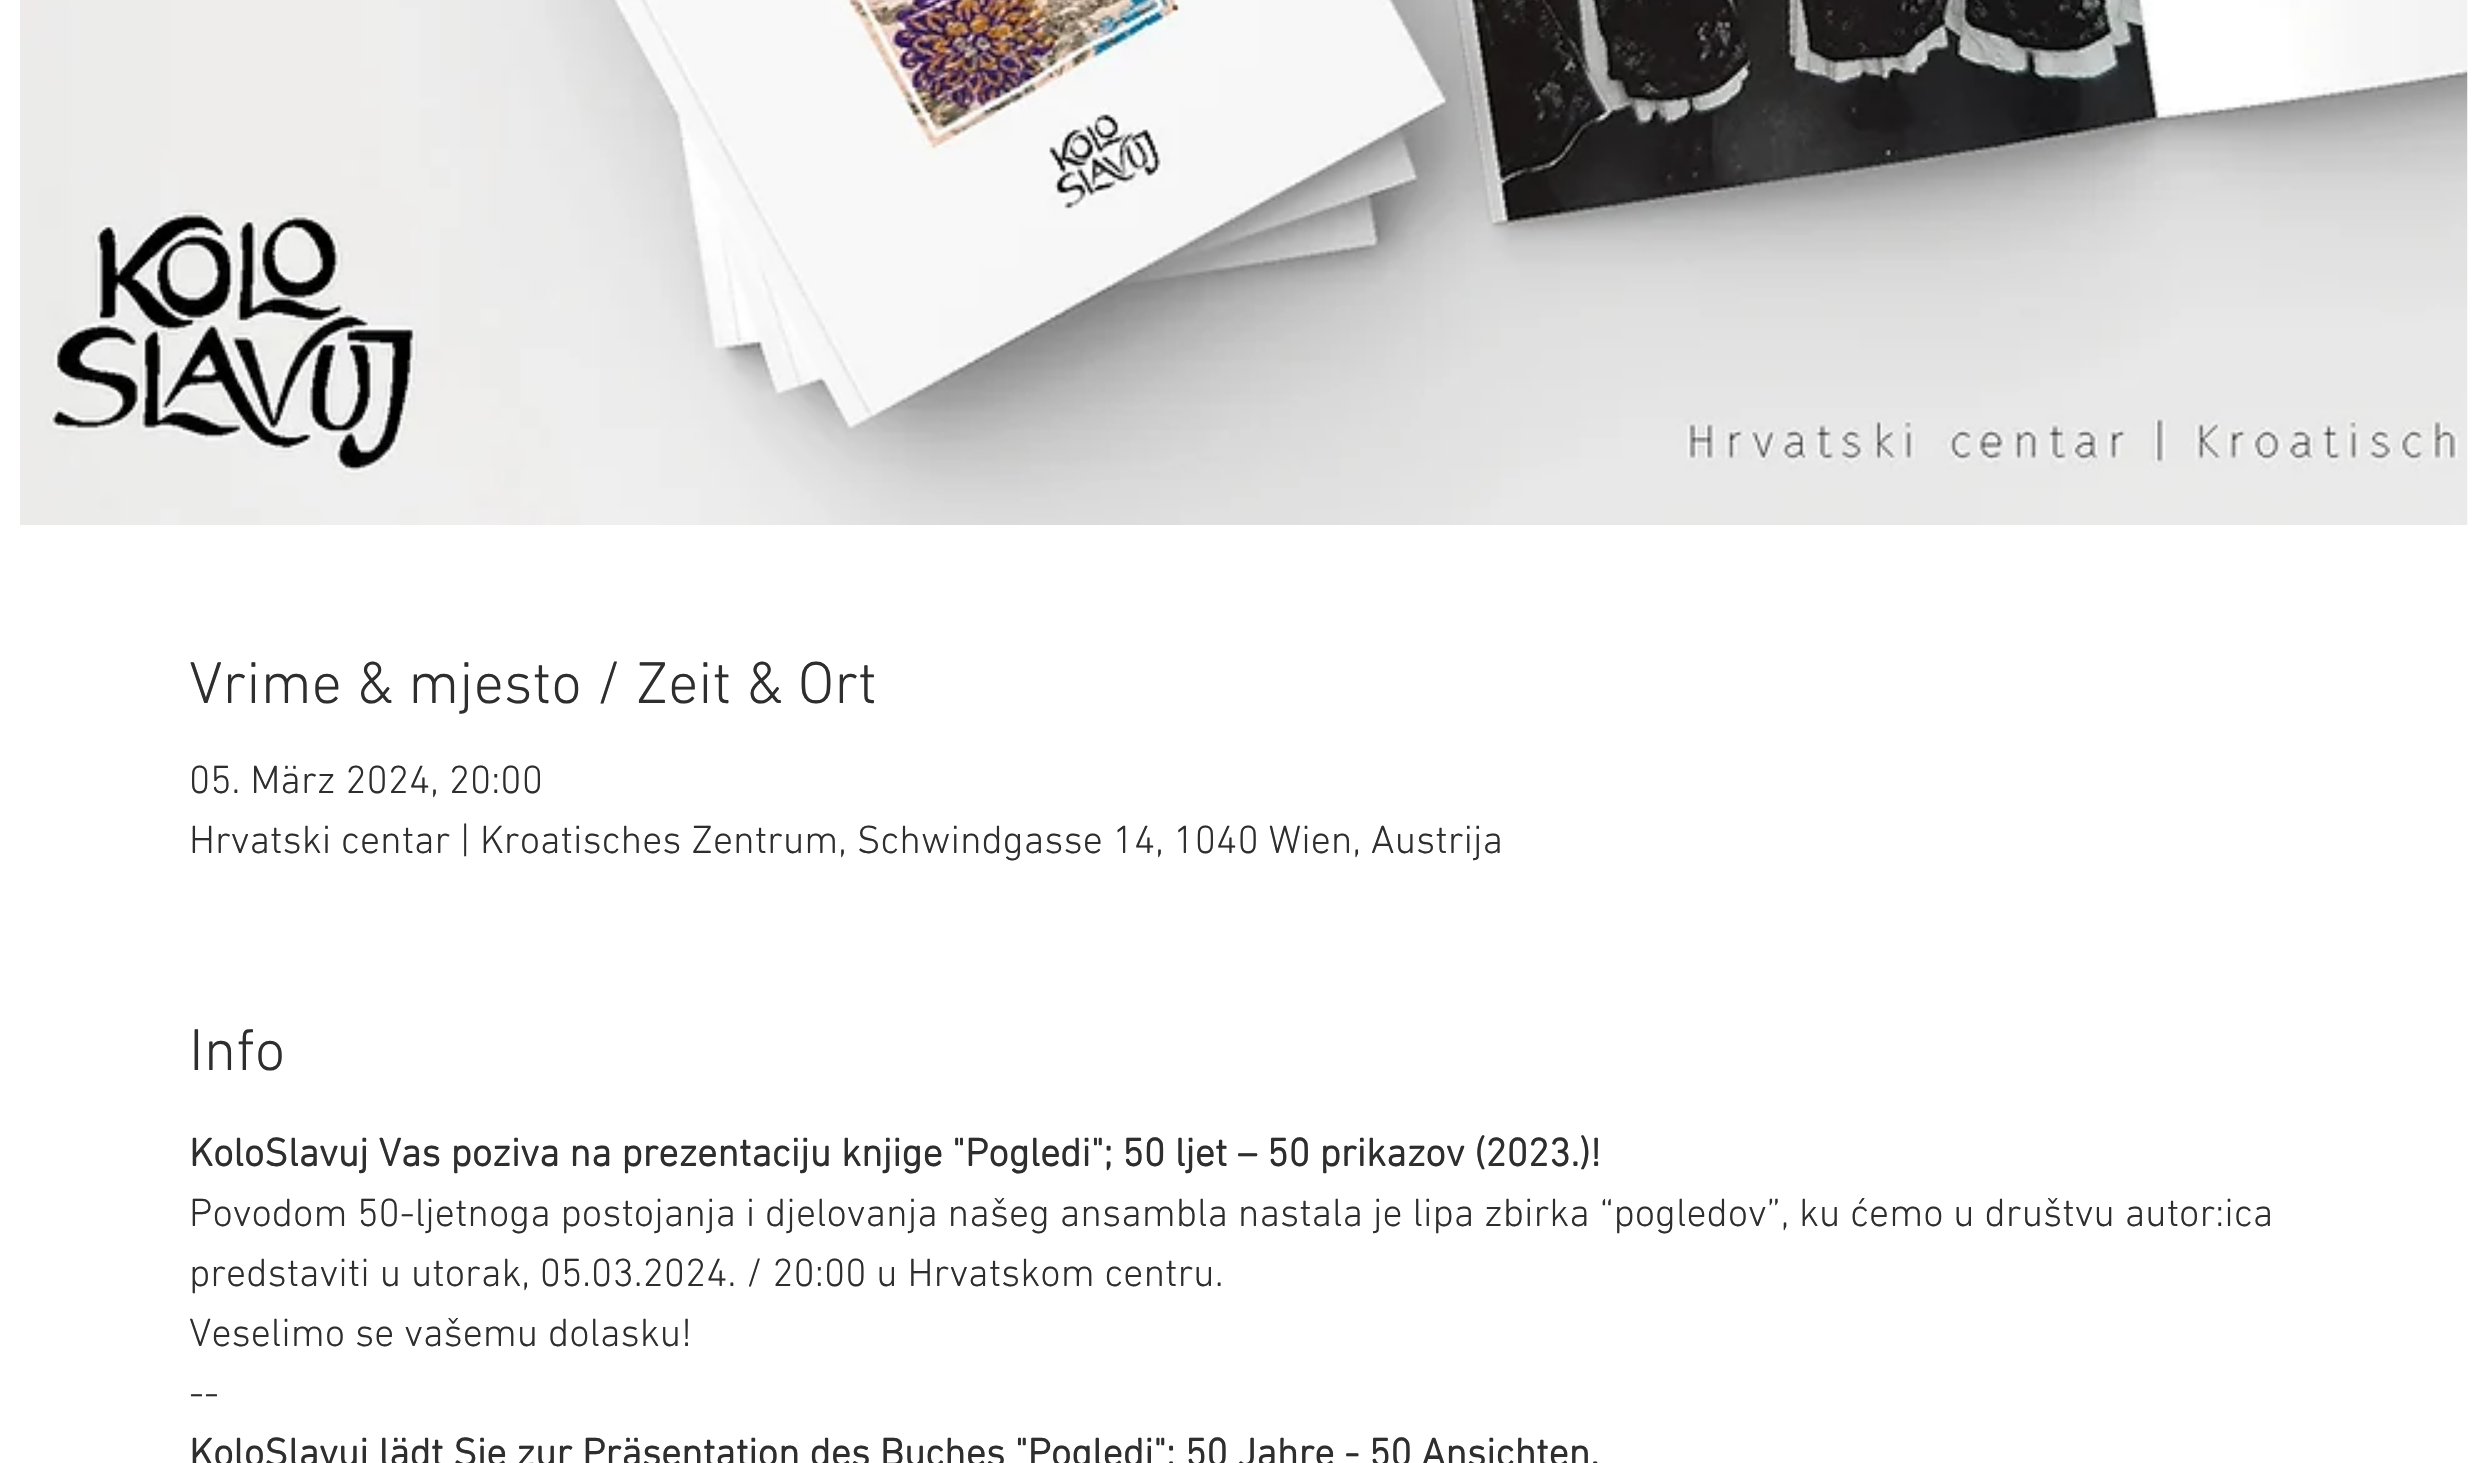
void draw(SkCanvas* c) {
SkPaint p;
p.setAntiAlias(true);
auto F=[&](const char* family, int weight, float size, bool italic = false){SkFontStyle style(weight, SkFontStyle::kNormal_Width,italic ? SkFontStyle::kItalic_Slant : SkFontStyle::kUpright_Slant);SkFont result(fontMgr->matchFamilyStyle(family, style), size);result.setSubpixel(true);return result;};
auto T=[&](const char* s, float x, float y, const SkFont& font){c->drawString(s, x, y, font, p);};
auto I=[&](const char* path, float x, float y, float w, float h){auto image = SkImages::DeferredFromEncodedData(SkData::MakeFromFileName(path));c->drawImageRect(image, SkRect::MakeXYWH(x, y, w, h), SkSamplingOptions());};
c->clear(0xffffffff);
I("1.png",20,0,2448,525);
auto f1 = F("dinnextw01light",300,60);
p.setColor(0xff2f2e2e);
T("Vrime & mjesto / Zeit & Ort",189,703,f1);
auto f2 = F("dinnextw01light",300,40);
T("05. März 2024, 20:00",189,793,f2);
T("Hrvatski centar | Kroatisches Zentrum, Schwindgasse 14, 1040 Wien, Austrija",189,853,f2);
T("Info",189,1070,f1);
auto f3 = F("dinnextw01light",700,40);
T("KoloSlavuj Vas poziva na prezentaciju knjige \"Pogledi\"; 50 ljet – 50 prikazov (2023.)!",189,1166,f3);
T("Povodom 50-ljetnoga postojanja i djelovanja našeg ansambla nastala je lipa zbirka “pogledov”, ku ćemo u društvu autor:ica",189,1226,f2);
T("predstaviti u utorak, 05.03.2024. / 20:00 u Hrvatskom centru.",189,1286,f2);
T("Veselimo se vašemu dolasku!",189,1346,f2);
T("--",189,1406,f2);
T("KoloSlavuj lädt Sie zur Präsentation des Buches \"Pogledi\"; 50 Jahre - 50 Ansichten.",189,1466,f3);
}
